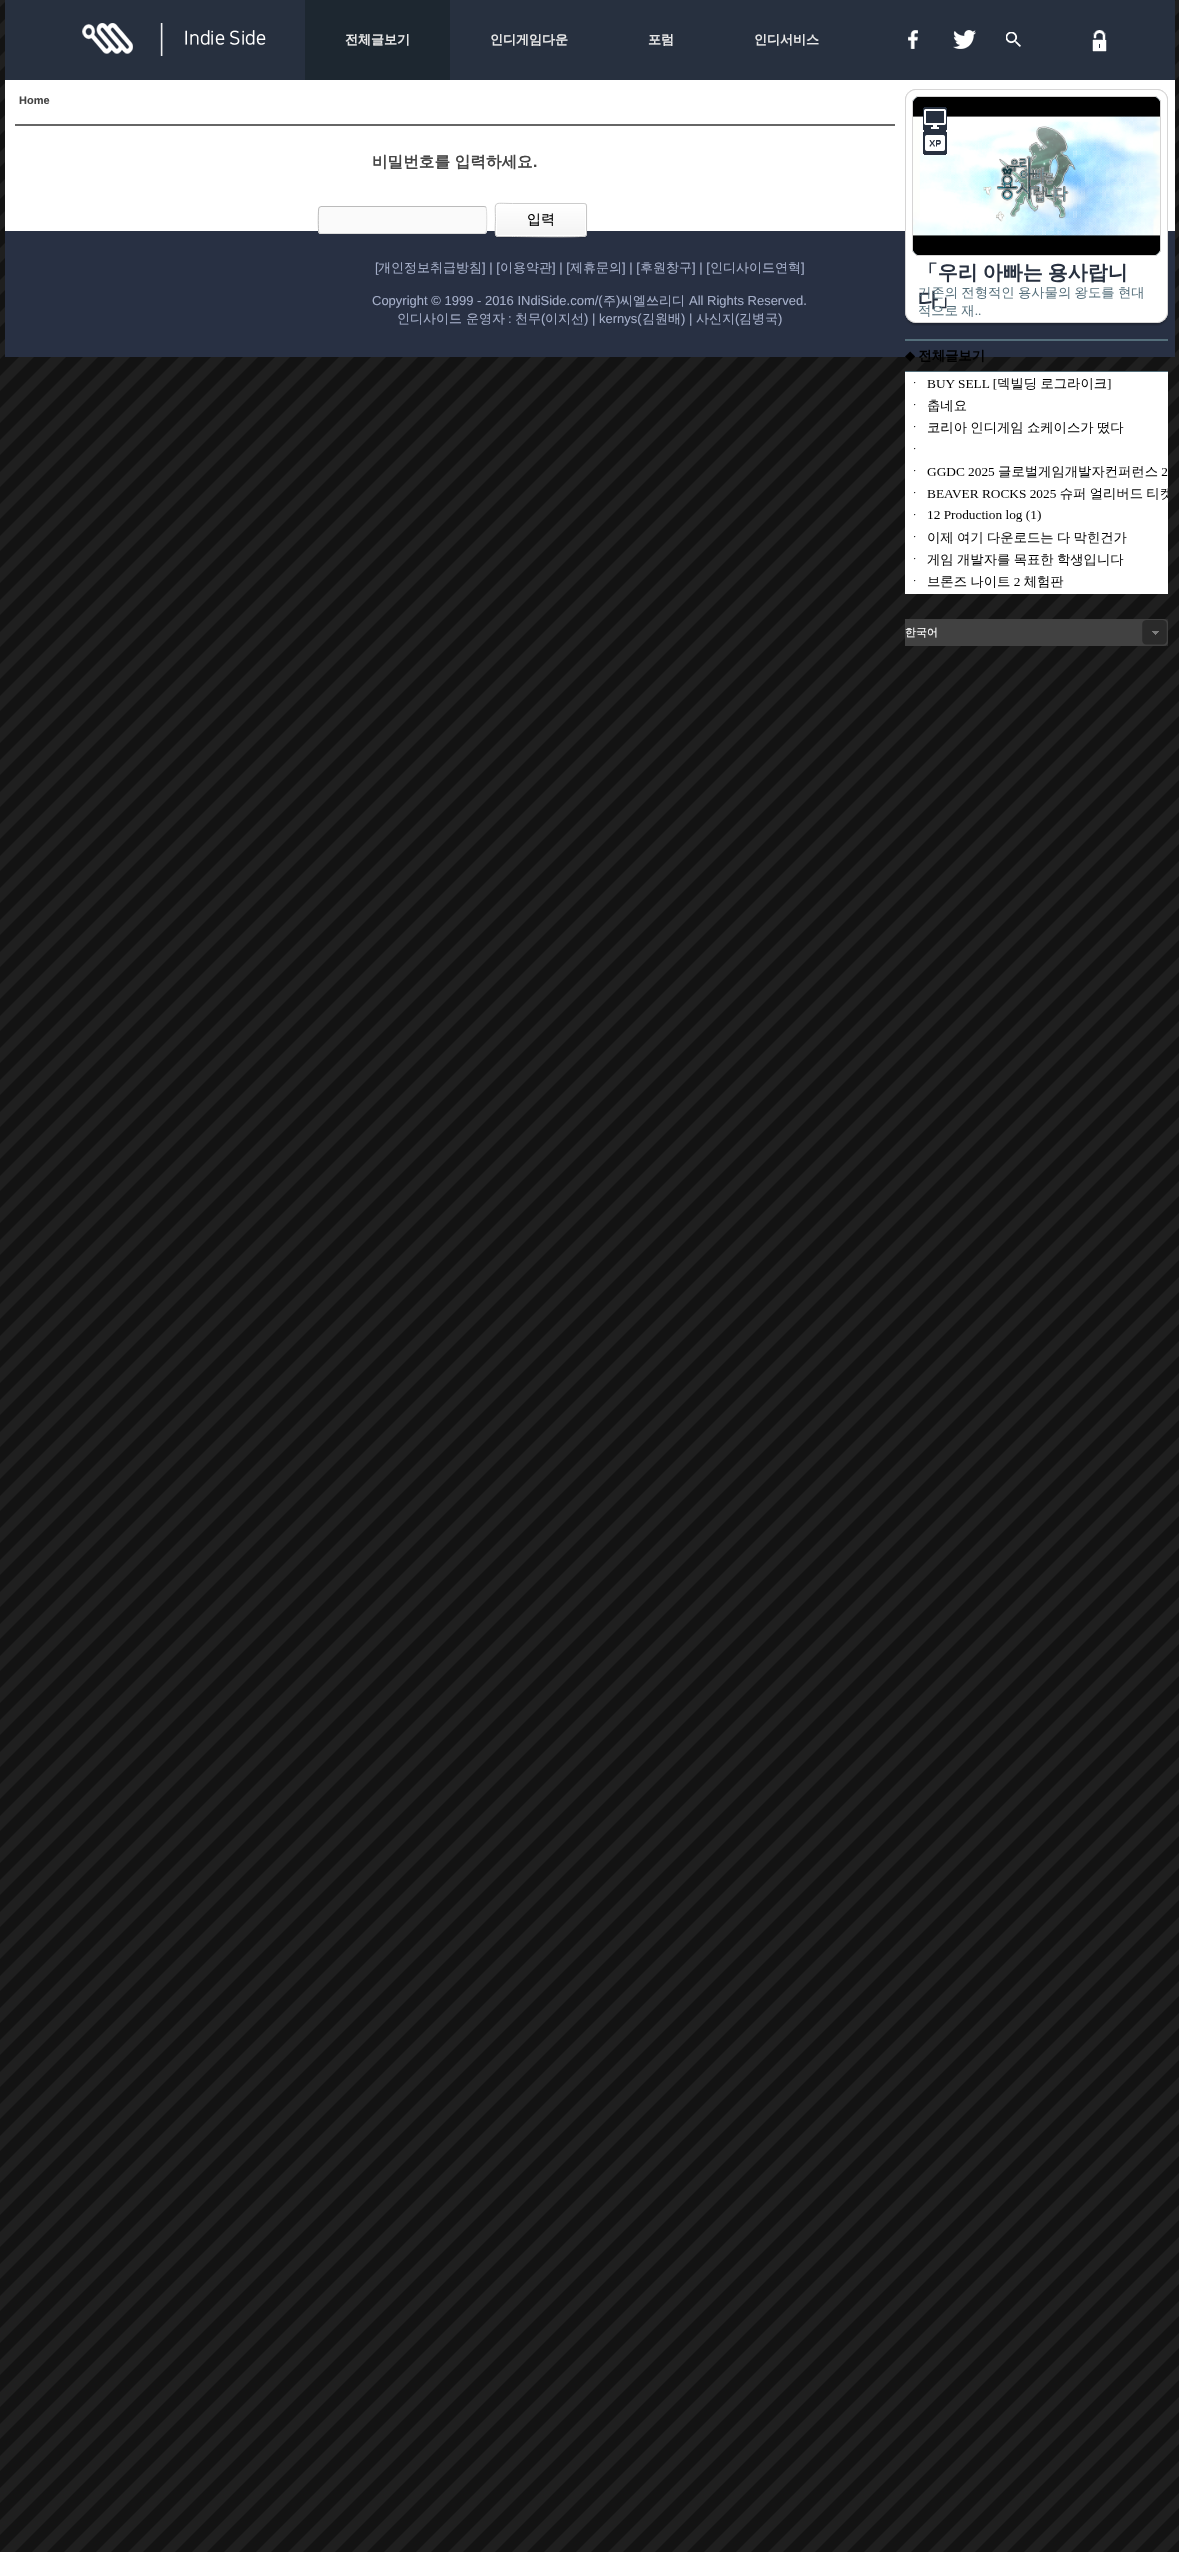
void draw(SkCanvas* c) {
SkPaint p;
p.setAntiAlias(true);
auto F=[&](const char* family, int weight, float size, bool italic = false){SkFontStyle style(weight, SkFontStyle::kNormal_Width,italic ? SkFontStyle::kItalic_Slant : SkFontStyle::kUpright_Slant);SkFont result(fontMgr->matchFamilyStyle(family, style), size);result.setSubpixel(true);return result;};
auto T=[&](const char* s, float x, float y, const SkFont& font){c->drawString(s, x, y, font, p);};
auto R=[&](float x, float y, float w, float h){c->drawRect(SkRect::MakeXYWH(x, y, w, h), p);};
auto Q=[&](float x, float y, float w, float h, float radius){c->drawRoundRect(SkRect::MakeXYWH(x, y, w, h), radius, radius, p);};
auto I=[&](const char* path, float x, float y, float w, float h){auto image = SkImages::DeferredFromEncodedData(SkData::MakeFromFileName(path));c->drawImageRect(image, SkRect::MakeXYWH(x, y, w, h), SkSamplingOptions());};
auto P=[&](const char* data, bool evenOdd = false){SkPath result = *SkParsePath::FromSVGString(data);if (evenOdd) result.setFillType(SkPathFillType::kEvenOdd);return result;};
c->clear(0xffffffff);
I("1.png",0,0,1179,2552);
p.setColor(0xff27303f);
R(5,0,1170,80);
I("2.png",82,23,184,33);
p.setColor(0xff1d2730);
R(305,0,145,80);
auto f1 = F("WenQuanYi Zen Hei",700,13);
p.setColor(0xffe8e8e8);
T("전체글보기",345,44,f1);
T("인디게임다운",490,44,f1);
T("포럼",648,44,f1);
T("인디서비스",754,44,f1);
I("3.png",908,30,10,19);
I("4.png",953,30,23,19);
I("5.png",1006,32,15,15);
I("6.png",1092,30,15,22);
p.setColor(0xffffffff);
R(5,80,1170,151);
auto f2 = F("Liberation Sans",700,11);
p.setColor(0xff444444);
T("Home",19,104,f2);
p.setColor(0xff666666);
R(15,124,880,2);
auto f3 = F("WenQuanYi Zen Hei",700,15.6);
p.setColor(0xff444444);
T("비밀번호를 입력하세요",372,167,f3);
auto f4 = F("Liberation Sans",700,15.6);
T(".",533,167,f4);
p.setColor(0xff283043);
R(5,231,1170,126);
p.setColor(0xfffafafa);
Q(318,206,169,28,3);
p.setStroke(true);
p.setStrokeWidth(1);
p.setColor(0xffdddddd);
c->drawPath(P("M486 207c1 1.5 1 24 0 25.5l-2 1h-163l-2-.5"),p);
p.setColor(0xffbbbbbb);
c->drawPath(P("M319 233c-1-1.5-1-24 0-25.5l2-1h163l2 .5"),p);
p.setStroke(false);
p.setColor(0x1a000000);
p.setMaskFilter(SkMaskFilter::MakeBlur(kNormal_SkBlurStyle, .5));
c->drawRoundRect(SkRect::MakeXYWH(495,204,92,34),3,3,p);
p.setMaskFilter(nullptr);
c->save();
c->clipPath(P("M498 203h86c1.5 0 3 1.5 3 3v28c0 1.5-1.5 3-3 3h-86c-1.5 0-3-1.5-3-3v-28c0-1.5 1.5-3 3-3z"),true);
{
const SkColor colors[] = {0xffffffff,0xfff3f3f3};
const float stops[] = {0,1};
const SkPoint ends[] = {{541,204}, {541,236}};
p.setShader(SkGradientShader::MakeLinear(ends, colors, stops, 2, SkTileMode::kClamp));
p.setAlpha(255);
}
R(495,204,92,32);
{
const SkColor colors[] = {0xffffffff,0xfff3f3f3};
const float stops[] = {0,1};
const SkPoint ends[] = {{541,236}, {541,268}};
p.setShader(SkGradientShader::MakeLinear(ends, colors, stops, 2, SkTileMode::kClamp));
p.setAlpha(255);
}
R(495,236,92,1);
c->restore();
p.setStroke(true);
p.setShader(nullptr);
p.setColor(0xffffffff);
c->drawRoundRect(SkRect::MakeXYWH(496.5,204.5,89,31),1.5,1.5,p);
p.setColor(0xffc6c6c6);
c->drawPath(P("M586 204c0 .5 .5 1.5 .5 2v28c0 .5-.5 1.5-.5 2"),p);
p.setColor(0xffc3c3c3);
c->drawPath(P("M586 236h-.5c-2 1.5-65.5 .5-73 .5h-14.5l-2-.5"),p);
p.setColor(0xffcccccc);
c->drawPath(P("M496 236c-1.5-2-.5-13.5-.5-16c0-20-3.5-16.5 17-16.5h71.5l2 .5"),p);
auto f5 = F("WenQuanYi Zen Hei",500,14);
p.setStroke(false);
p.setColor(0xff000000);
T("입력",527,224,f5);
I("7.png",905,89,263,237);
I("8.png",905,339,263,255);
p.setColor(0xff414141);
R(905,619,237,27);
I("9.png",1142,619,26,27);
auto f6 = F("WenQuanYi Zen Hei",500,11);
p.setColor(0xffffffff);
T("한국어",905,636,f6);
auto f7 = F("Liberation Sans",400,13);
p.setColor(0xffa5afc9);
T("[",375,272,f7);
auto f8 = F("WenQuanYi Zen Hei",500,13);
T("개인정보취급방침",378,272,f8);
T("] | [",482,272,f7);
T("이용약관",500,272,f8);
T("] | [",552,272,f7);
T("제휴문의",570,272,f8);
T("] | [",622,272,f7);
T("후원창구",640,272,f8);
T("] | [",692,272,f7);
T("인디사이드연혁",710,272,f8);
T("]",801,272,f7);
T("Copyright © 1999 - 2016 INdiSide.com/(",372,305,f7);
T("주",603,305,f8);
T(")",616,305,f7);
T("씨엘쓰리디",620,305,f8);
T("All Rights Reserved.",689,305,f7);
T("인디사이드 운영자",397,323,f8);
T(":",508,323,f7);
T("천무",515,323,f8);
T("(",541,323,f7);
T("이지선",545,323,f8);
T(") | kernys(",584,323,f7);
T("김원배",642,323,f8);
T(") |",681,323,f7);
T("사신지",696,323,f8);
T("(",735,323,f7);
T("김병국",739,323,f8);
T(")",778,323,f7);
}
